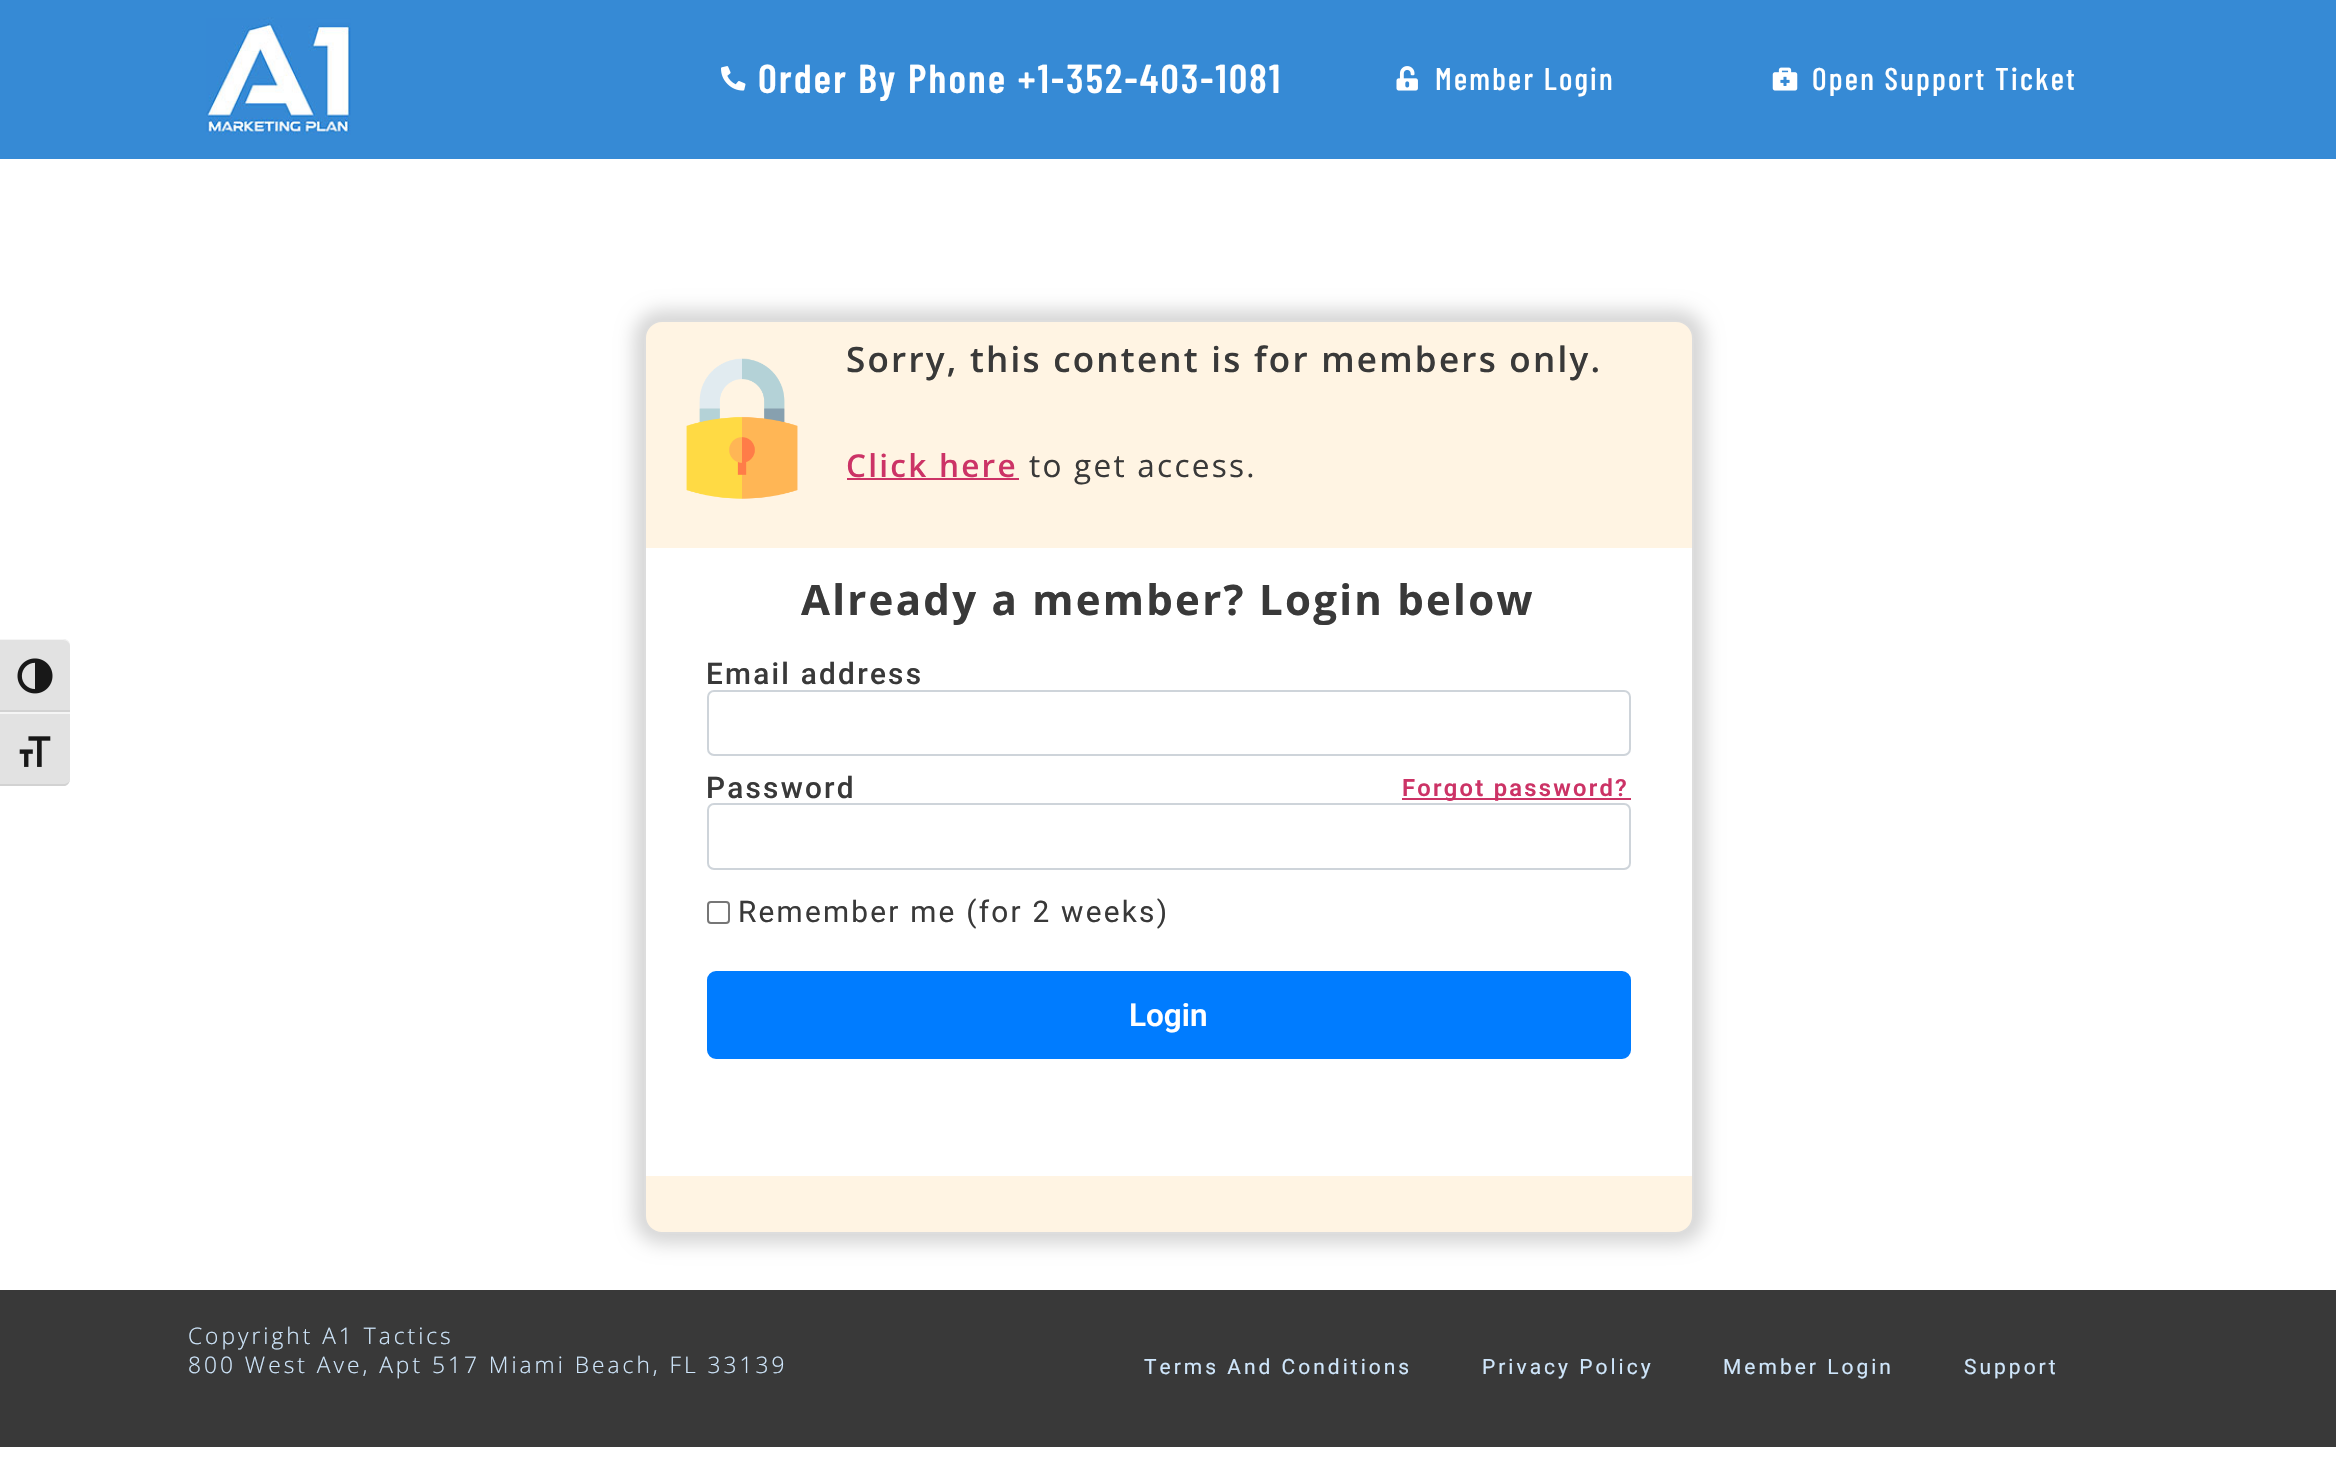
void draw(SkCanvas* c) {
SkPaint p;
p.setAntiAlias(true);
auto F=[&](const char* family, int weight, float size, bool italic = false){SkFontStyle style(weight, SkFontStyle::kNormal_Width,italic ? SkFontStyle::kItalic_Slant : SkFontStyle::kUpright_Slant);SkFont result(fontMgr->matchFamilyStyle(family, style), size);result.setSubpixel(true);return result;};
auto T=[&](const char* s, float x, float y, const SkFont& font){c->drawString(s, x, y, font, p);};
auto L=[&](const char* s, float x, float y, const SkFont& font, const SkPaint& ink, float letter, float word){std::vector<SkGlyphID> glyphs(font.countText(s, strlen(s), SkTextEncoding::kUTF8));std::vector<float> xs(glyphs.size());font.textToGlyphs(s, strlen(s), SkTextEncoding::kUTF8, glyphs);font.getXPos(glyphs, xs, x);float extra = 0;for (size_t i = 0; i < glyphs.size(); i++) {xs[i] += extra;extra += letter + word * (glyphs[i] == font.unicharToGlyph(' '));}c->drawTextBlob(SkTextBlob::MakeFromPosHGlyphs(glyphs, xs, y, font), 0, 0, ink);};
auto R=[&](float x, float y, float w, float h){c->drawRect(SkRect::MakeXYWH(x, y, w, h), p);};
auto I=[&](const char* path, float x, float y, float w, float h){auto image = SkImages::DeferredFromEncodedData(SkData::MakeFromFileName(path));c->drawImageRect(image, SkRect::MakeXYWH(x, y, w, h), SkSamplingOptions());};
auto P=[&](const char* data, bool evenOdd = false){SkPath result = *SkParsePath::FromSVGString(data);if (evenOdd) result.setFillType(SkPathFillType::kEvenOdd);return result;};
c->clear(0xffffffff);
p.setColor(0xff368ad5);
R(0,0,2336,159);
I("1.png",206,17,145,118);
I("2.png",721,66,25,25);
auto f1 = F("Barlow Condensed",600,40.25);
p.setColor(0xffffffff);
L("Order By Phone +1-352-403-1081",758,93,f1,p,2.25,0);
I("3.png",1396,66,22,25);
auto f2 = F("Barlow Condensed",500,31.5);
L("Member Login",1435,90,f2,p,2.25,0);
I("4.png",1772,67,26,24);
L("Open Support Ticket",1812,90,f2,p,2.25,0);
p.setColor(0xffe2e2e2);
c->drawPath(P("M0 639h63c4 0 7 3 7 7v66h-70z"),p);
p.setColor(0xfff5f5f5);
c->drawPath(P("M0 640h63c4 0 7 3 7 6c0-4-3-7-7-7h-63z"),p);
p.setColor(0xffd2d2d2);
R(0,710,70,2);
I("5.png",17,658,36,36);
p.setColor(0xffe2e2e2);
c->drawPath(P("M0 712h70v67c0 4-3 7-7 7h-63z"),p);
p.setColor(0xfff5f5f5);
R(0,712,70,2);
p.setColor(0xffd2d2d2);
c->drawPath(P("M65 786c3-1 5-4 5-7c0 3-3 5-7 5h-63v2z"),p);
I("6.png",19,736,32,31);
p.setColor(0xffd6d6d6);
p.setMaskFilter(SkMaskFilter::MakeBlur(kNormal_SkBlurStyle, 9));
c->drawRoundRect(SkRect::MakeXYWH(634,310,1071,934),28,28,p);
p.setMaskFilter(nullptr);
p.setColor(0xfffff4e3);
c->drawRoundRect(SkRect::MakeXYWH(645,321,1048,912),17,17,p);
p.setStroke(true);
p.setStrokeWidth(2);
p.setColor(0xffdddddd);
c->drawRoundRect(SkRect::MakeXYWH(645,321,1048,912),17,17,p);
I("7.png",686,358,112,141);
auto f3 = F("Open Sans",600,35);
p.setStroke(false);
p.setColor(0xff393939);
L("Sorry, this content is for members only.",846,372,f3,p,2.25,0);
auto f4 = F("Open Sans",600,31.5);
p.setColor(0xffcc3366);
L("Click here",846,477,f4,p,2.25,0);
R(847,478,172,2);
auto f5 = F("Open Sans",400,31.5);
p.setColor(0xff393939);
L("to get access.",1029,477,f5,p,2.25,0);
p.setColor(0xffffffff);
R(646,548,1046,628);
auto f6 = F("Open Sans",700,42);
p.setColor(0xff393939);
L("Already a member? Login below",801,615,f6,p,2.25,0);
auto f7 = F("Roboto",500,29.75);
L("Email address",706,684,f7,p,2.25,0);
p.setStroke(true);
p.setColor(0xffced4da);
c->drawRoundRect(SkRect::MakeXYWH(708,691,922,64),6,6,p);
p.setStroke(false);
p.setColor(0xff393939);
L("Password",706,798,f7,p,2.25,0);
p.setColor(0xffcc3366);
R(1402,798,229,2);
auto f8 = F("Roboto",600,23.75);
L("Forgot password?",1402,796,f8,p,2.25,0);
p.setStroke(true);
p.setColor(0xffced4da);
c->drawRoundRect(SkRect::MakeXYWH(708,804,922,65),6,6,p);
p.setColor(0xff767676);
c->drawRoundRect(SkRect::MakeXYWH(708,902,21,21),3,3,p);
auto f9 = F("Roboto",400,29.75);
p.setStroke(false);
p.setColor(0xff393939);
L("Remember me (for 2 weeks)",738,922,f9,p,2.25,0);
p.setColor(0xff007cff);
c->drawRoundRect(SkRect::MakeXYWH(708,972,922,86),8,8,p);
p.setStroke(true);
c->drawRoundRect(SkRect::MakeXYWH(708,972,922,86),8,8,p);
auto f10 = F("Roboto",600,31.5);
p.setStroke(false);
p.setColor(0xffffffff);
T("Login",1129,1026,f10);
p.setColor(0xff393939);
R(0,1290,2336,157);
auto f11 = F("Open Sans",300,22.75);
p.setColor(0xffcfe6fb);
L("Copyright A1 Tactics",188,1344,f11,p,3,0);
L("800 West Ave, Apt 517 Miami Beach, FL 33139",188,1373,f11,p,3,0);
auto f12 = F("Roboto",400,21);
L("Terms And Conditions",1144,1374,f12,p,3,0);
L("Privacy Policy",1482,1374,f12,p,3,0);
L("Member Login",1723,1374,f12,p,3,0);
L("Support",1964,1374,f12,p,3,0);
}
